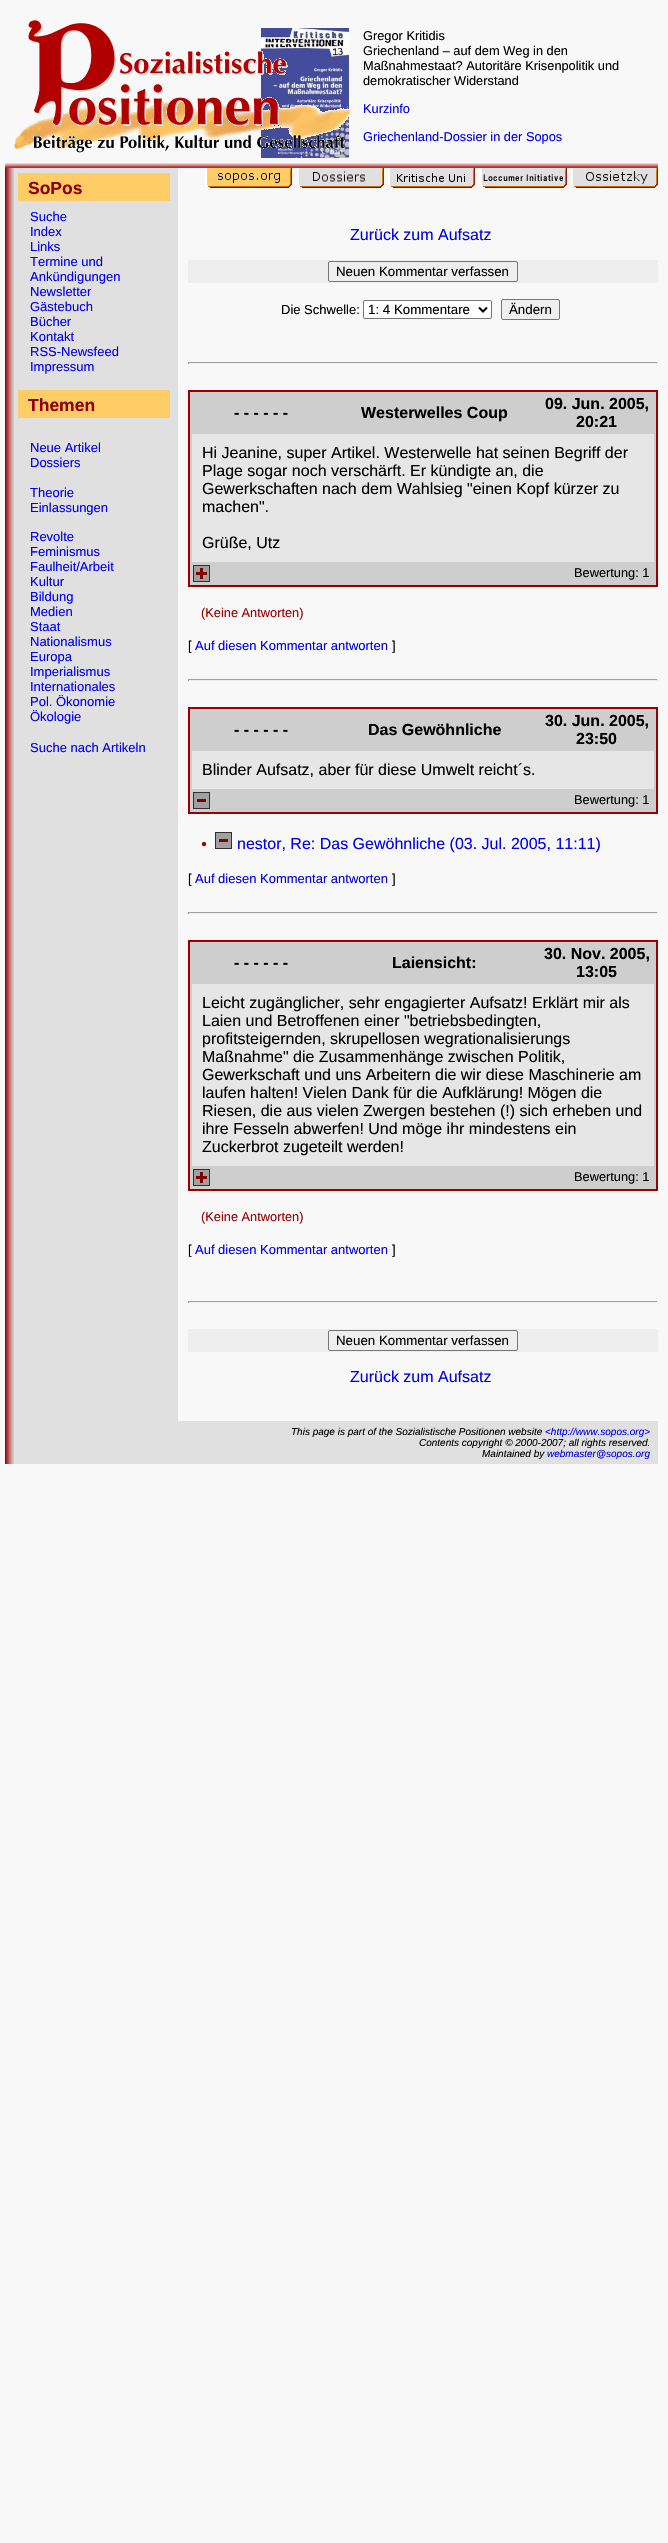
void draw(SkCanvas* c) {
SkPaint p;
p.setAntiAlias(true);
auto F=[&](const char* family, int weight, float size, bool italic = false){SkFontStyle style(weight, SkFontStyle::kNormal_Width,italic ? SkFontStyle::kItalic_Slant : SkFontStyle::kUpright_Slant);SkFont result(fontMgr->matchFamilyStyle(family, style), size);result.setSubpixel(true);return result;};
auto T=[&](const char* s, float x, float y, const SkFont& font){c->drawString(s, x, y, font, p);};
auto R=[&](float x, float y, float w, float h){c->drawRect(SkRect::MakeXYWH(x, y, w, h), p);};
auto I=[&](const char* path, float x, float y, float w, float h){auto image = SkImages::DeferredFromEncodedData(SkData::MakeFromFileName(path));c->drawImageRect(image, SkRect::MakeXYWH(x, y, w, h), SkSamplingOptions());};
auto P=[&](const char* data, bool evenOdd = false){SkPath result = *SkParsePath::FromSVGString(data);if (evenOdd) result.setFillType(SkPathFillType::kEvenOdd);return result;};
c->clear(0xfff8f8f8);
I("2.png",261,28,88,130);
I("1.png",14,20,337,133);
auto f1 = F("Liberation Sans",400,12.8);
p.setColor(0xff000000);
T("Gregor Kritidis",363,40,f1);
T("Griechenland – auf dem Weg in den",363,55,f1);
T("Maßnahmestaat? Autoritäre Krisenpolitik und",363,70,f1);
T("demokratischer Widerstand",363,85,f1);
p.setColor(0xff0000ef);
T("Kurzinfo",363,113,f1);
T("Griechenland-Dossier in der Sopos",363,141,f1);
I("3.png",5,163,653,5);
p.setColor(0xffe0e0e0);
R(14,168,164,1253);
I("4.png",5,168,9,1253);
p.setColor(0xffffcc66);
R(18,173,152,28);
auto f2 = F("Liberation Sans",700,17.5);
p.setColor(0xff900000);
T("SoPos",28,194,f2);
auto f3 = F("Liberation Sans",400,13);
p.setColor(0xff0000ef);
T("Suche",30,221,f3);
T("Index",30,236,f3);
T("Links",30,251,f3);
T("Termine und",30,266,f3);
T("Ankündigungen",30,281,f3);
T("Newsletter",30,296,f3);
T("Gästebuch",30,311,f3);
T("Bücher",30,326,f3);
T("Kontakt",30,341,f3);
T("RSS-Newsfeed",30,356,f3);
T("Impressum",30,371,f3);
p.setColor(0xffffcc66);
R(18,390,152,28);
p.setColor(0xff900000);
T("Themen",28,411,f2);
p.setColor(0xff0000ef);
T("Neue Artikel",30,452,f3);
T("Dossiers",30,467,f3);
T("Theorie",30,497,f3);
T("Einlassungen",30,512,f3);
T("Revolte",30,541,f3);
T("Feminismus",30,556,f3);
T("Faulheit/Arbeit",30,571,f3);
T("Kultur",30,586,f3);
T("Bildung",30,601,f3);
T("Medien",30,616,f3);
T("Staat",30,631,f3);
T("Nationalismus",30,646,f3);
T("Europa",30,661,f3);
T("Imperialismus",30,676,f3);
T("Internationales",30,691,f3);
T("Pol. Ökonomie",30,706,f3);
T("Ökologie",30,721,f3);
T("Suche nach Artikeln",30,752,f3);
I("5.png",205,168,87,20);
I("6.png",297,168,87,20);
I("7.png",388,168,87,20);
I("8.png",480,168,87,20);
I("9.png",571,168,87,20);
auto f4 = F("Liberation Sans",400,16);
T("Zurück zum Aufsatz",350,240,f4);
p.setColor(0xffeeeeee);
R(188,260,470,23);
p.setStroke(true);
p.setStrokeWidth(1);
p.setColor(0xff767676);
c->drawRoundRect(SkRect::MakeXYWH(328.5,261.5,189,20),1.5,1.5,p);
auto f5 = F("Liberation Sans",400,13.3);
p.setStroke(false);
p.setColor(0xff000000);
T("Neuen Kommentar verfassen",336,276,f5);
T("Die Schwelle:",281,314,f3);
p.setColor(0xffffffff);
c->drawRoundRect(SkRect::MakeXYWH(363.5,300.5,128,18),1.5,1.5,p);
p.setStroke(true);
p.setColor(0xff767676);
c->drawRoundRect(SkRect::MakeXYWH(363.5,300.5,128,18),1.5,1.5,p);
p.setStrokeWidth(2);
p.setColor(0xff000000);
c->drawPath(P("M479 307.5l4 4l4-4"),p);
p.setStroke(false);
T("1: 4 Kommentare",368,314,f5);
p.setColor(0xffefefef);
c->drawRoundRect(SkRect::MakeXYWH(501.5,299.5,58,20),1.5,1.5,p);
p.setStroke(true);
p.setStrokeWidth(1);
p.setColor(0xff767676);
c->drawRoundRect(SkRect::MakeXYWH(501.5,299.5,58,20),1.5,1.5,p);
p.setStroke(false);
p.setColor(0xff000000);
T("Ändern",509,314,f5);
p.setColor(0xff9f9f9f);
R(188,362,470,1);
p.setColor(0xffeeeeee);
R(657,362,1,2);
R(188,363,470,1);
p.setColor(0xff9f9f9f);
R(188,362,1,2);
p.setColor(0xffcecece);
c->drawRect(SkRect::MakeXYWH(189,391,468,195),p);
p.setStroke(true);
p.setStrokeWidth(2);
p.setColor(0xff990000);
c->drawRect(SkRect::MakeXYWH(189,391,468,195),p);
auto f6 = F("Liberation Sans",700,16);
p.setStroke(false);
p.setColor(0xff000000);
T("- - - - - -",234,418,f6);
T("Westerwelles Coup",361,418,f6);
T("09. Jun. 2005,",545,409,f6);
T("20:21",576,427,f6);
p.setColor(0xffe6e6e6);
R(192,434,462,128);
p.setColor(0xff000000);
T("Hi Jeanine, super Artikel. Westerwelle hat seinen Begriff der",202,458,f4);
T("Plage sogar noch verschärft. Er kündigte an, die",202,476,f4);
T("Gewerkschaften nach dem Wahlsieg \"einen Kopf kürzer zu",202,494,f4);
T("machen\".",202,512,f4);
T("Grüße, Utz",202,548,f4);
I("10.png",193,565,17,17);
T("Bewertung: 1",574,577,f1);
p.setColor(0xff990000);
T("(Keine Antworten)",201,617,f1);
p.setColor(0xff000000);
T("[",188,650,f3);
p.setColor(0xff0000ef);
T("Auf diesen Kommentar antworten",195,650,f3);
p.setColor(0xff000000);
T("]",392,650,f3);
p.setColor(0xff9f9f9f);
R(188,679,470,1);
p.setColor(0xffeeeeee);
R(657,679,1,2);
R(188,680,470,1);
p.setColor(0xff9f9f9f);
R(188,679,1,2);
p.setColor(0xffcecece);
c->drawRect(SkRect::MakeXYWH(189,708,468,105),p);
p.setStroke(true);
p.setColor(0xff990000);
c->drawRect(SkRect::MakeXYWH(189,708,468,105),p);
p.setStroke(false);
p.setColor(0xff000000);
T("- - - - - -",234,735,f6);
T("Das Gewöhnliche",368,735,f6);
T("30. Jun. 2005,",545,726,f6);
T("23:50",576,744,f6);
p.setColor(0xffe6e6e6);
R(192,751,462,38);
p.setColor(0xff000000);
T("Blinder Aufsatz, aber für diese Umwelt reicht´s.",202,775,f4);
I("11.png",193,792,17,17);
T("Bewertung: 1",574,804,f1);
I("12.png",201,841,6,6);
I("11.png",215,832,17,17);
p.setColor(0xff0000ef);
T("nestor, Re: Das Gewöhnliche (03. Jul. 2005, 11:11)",237,849,f4);
p.setColor(0xff000000);
T("[",188,883,f3);
p.setColor(0xff0000ef);
T("Auf diesen Kommentar antworten",195,883,f3);
p.setColor(0xff000000);
T("]",392,883,f3);
p.setColor(0xff9f9f9f);
R(188,912,470,1);
p.setColor(0xffeeeeee);
R(657,912,1,2);
R(188,913,470,1);
p.setColor(0xff9f9f9f);
R(188,912,1,2);
p.setColor(0xffcecece);
c->drawRect(SkRect::MakeXYWH(189,941,468,249),p);
p.setStroke(true);
p.setColor(0xff990000);
c->drawRect(SkRect::MakeXYWH(189,941,468,249),p);
p.setStroke(false);
p.setColor(0xff000000);
T("- - - - - -",234,968,f6);
T("Laiensicht:",392,968,f6);
T("30. Nov. 2005,",544,959,f6);
T("13:05",576,977,f6);
p.setColor(0xffe6e6e6);
R(192,984,462,182);
p.setColor(0xff000000);
T("Leicht zugänglicher, sehr engagierter Aufsatz! Erklärt mir als",202,1008,f4);
T("Laien und Betroffenen einer \"betriebsbedingten,",202,1026,f4);
T("profitsteigernden, skrupellosen wegrationalisierungs",202,1044,f4);
T("Maßnahme\" die Zusammenhänge zwischen Politik,",202,1062,f4);
T("Gewerkschaft und uns Arbeitern die wir diese Maschinerie am",202,1080,f4);
T("laufen halten! Vielen Dank für die Aufklärung! Mögen die",202,1098,f4);
T("Riesen, die aus vielen Zwergen bestehen (!) sich erheben und",202,1116,f4);
T("ihre Fesseln abwerfen! Und möge ihr mindestens ein",202,1134,f4);
T("Zuckerbrot zugeteilt werden!",202,1152,f4);
I("10.png",193,1169,17,17);
T("Bewertung: 1",574,1181,f1);
p.setColor(0xff990000);
T("(Keine Antworten)",201,1221,f1);
p.setColor(0xff000000);
T("[",188,1254,f3);
p.setColor(0xff0000ef);
T("Auf diesen Kommentar antworten",195,1254,f3);
p.setColor(0xff000000);
T("]",392,1254,f3);
p.setColor(0xff9f9f9f);
R(188,1301,470,1);
p.setColor(0xffeeeeee);
R(657,1301,1,2);
R(188,1302,470,1);
p.setColor(0xff9f9f9f);
R(188,1301,1,2);
p.setColor(0xffeeeeee);
R(188,1329,470,23);
p.setStroke(true);
p.setStrokeWidth(1);
p.setColor(0xff767676);
c->drawRoundRect(SkRect::MakeXYWH(328.5,1330.5,189,20),1.5,1.5,p);
p.setStroke(false);
p.setColor(0xff000000);
T("Neuen Kommentar verfassen",336,1345,f5);
p.setColor(0xff0000ef);
T("Zurück zum Aufsatz",350,1382,f4);
p.setColor(0xffe0e0e0);
R(14,1421,644,43);
I("13.png",5,1421,9,43);
auto f7 = F("Liberation Sans",400,10,true);
p.setColor(0xff000000);
T("This page is part of the Sozialistische Positionen website",291,1435,f7);
p.setColor(0xff0000ef);
T("<http://www.sopos.org>",545,1435,f7);
p.setColor(0xff000000);
T("Contents copyright © 2000-2007; all rights reserved.",419,1446,f7);
T("Maintained by",482,1457,f7);
p.setColor(0xff0000ef);
T("webmaster@sopos.org",547,1457,f7);
}
